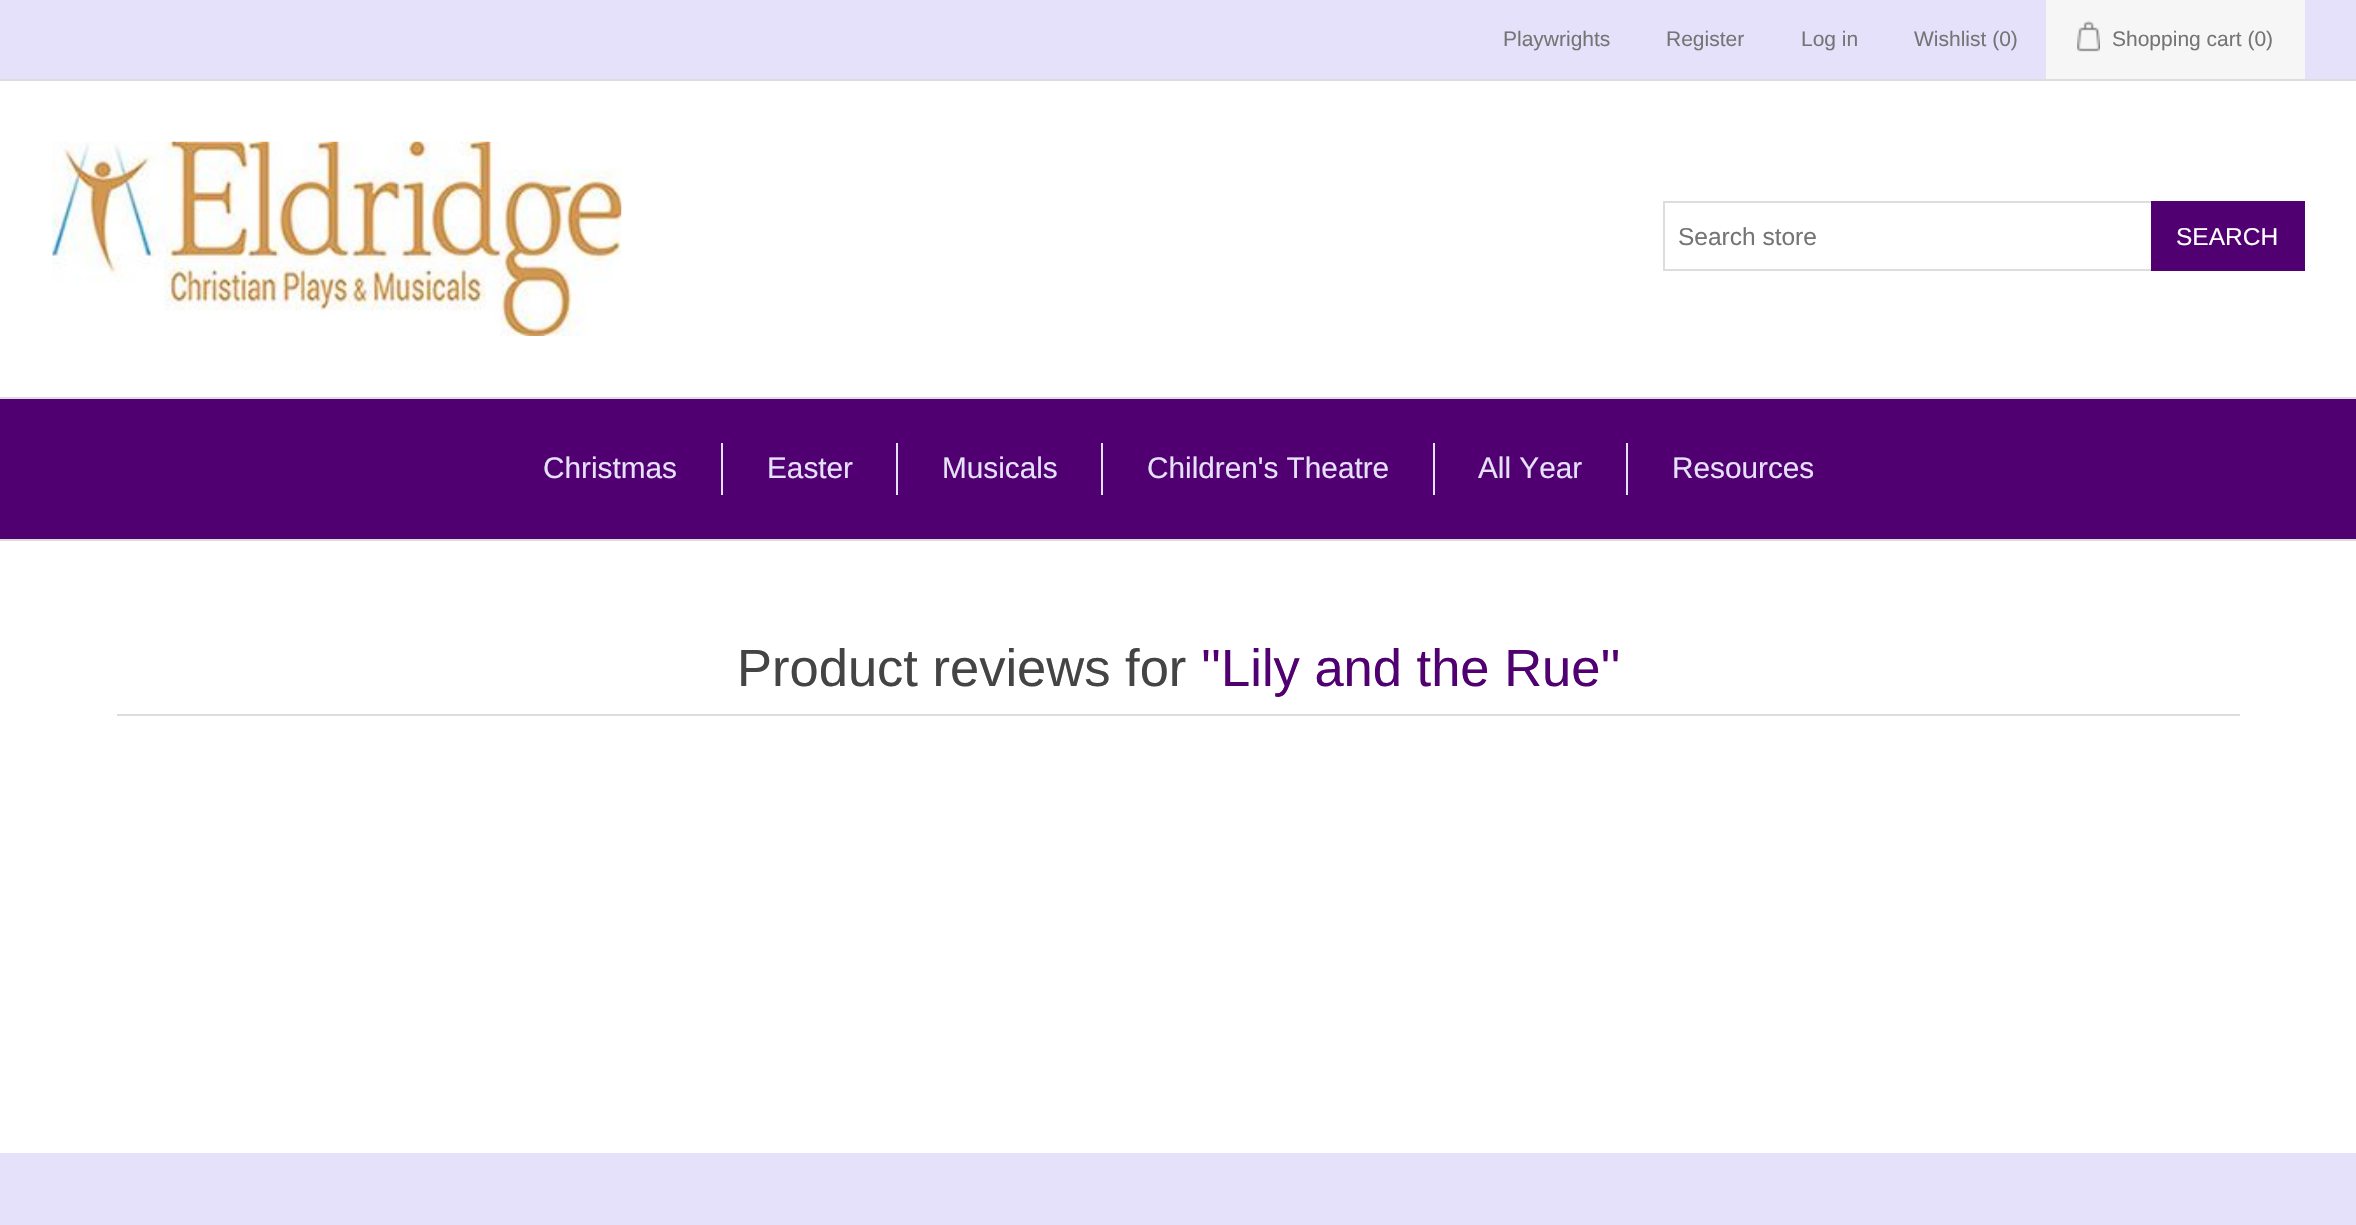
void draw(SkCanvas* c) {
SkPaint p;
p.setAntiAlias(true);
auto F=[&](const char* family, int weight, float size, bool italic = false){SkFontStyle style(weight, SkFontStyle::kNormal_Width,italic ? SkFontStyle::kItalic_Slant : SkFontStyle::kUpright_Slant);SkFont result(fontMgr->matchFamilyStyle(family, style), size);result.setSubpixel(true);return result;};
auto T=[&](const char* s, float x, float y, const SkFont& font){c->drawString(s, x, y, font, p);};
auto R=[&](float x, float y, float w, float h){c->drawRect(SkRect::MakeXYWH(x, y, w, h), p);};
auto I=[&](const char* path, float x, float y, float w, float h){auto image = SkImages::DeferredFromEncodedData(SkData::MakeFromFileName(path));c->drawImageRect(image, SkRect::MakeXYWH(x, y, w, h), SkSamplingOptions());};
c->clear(0xffffffff);
p.setColor(0xffe6e1fa);
R(0,0,2356,79);
p.setColor(0xffdddddd);
R(0,79,2356,2);
auto f1 = F("Liberation Sans",400,21);
p.setColor(0xff757575);
T("Playwrights",1503,46,f1);
T("Register",1666,46,f1);
T("Log in",1801,46,f1);
T("Wishlist (0)",1914,46,f1);
p.setColor(0xfff6f6f6);
R(2046,0,259,79);
I("1.png",2077,21,23,31);
p.setColor(0xff757575);
T("Shopping cart (0)",2112,46,f1);
I("2.png",52,141,570,195);
p.setStroke(true);
p.setStrokeWidth(2);
p.setColor(0xffdddddd);
c->drawRect(SkRect::MakeXYWH(1664,202,488,68),p);
auto f2 = F("Liberation Sans",400,24.5);
p.setStroke(false);
p.setColor(0xff757575);
T("Search store",1678,245,f2);
p.setColor(0xff500070);
R(2151,201,154,70);
p.setColor(0xffffffff);
T("SEARCH",2176,245,f2);
p.setColor(0xff500070);
R(0,399,2356,140);
p.setColor(0xffdddddd);
R(0,397,2356,2);
R(0,539,2356,2);
auto f3 = F("Liberation Sans",400,29.75);
p.setColor(0xffe6e1fa);
T("Christmas",543,478,f3);
R(721,443,2,52);
T("Easter",767,478,f3);
R(896,443,2,52);
T("Musicals",942,478,f3);
R(1101,443,2,52);
T("Children's Theatre",1147,478,f3);
R(1433,443,2,52);
T("All Year",1478,478,f3);
R(1626,443,2,52);
T("Resources",1672,478,f3);
p.setColor(0xffdddddd);
R(117,714,2123,2);
auto f4 = F("Liberation Sans",400,52.5);
p.setColor(0xff444444);
T("Product reviews for",737,686,f4);
p.setColor(0xff500070);
T("''Lily and the Rue''",1201,686,f4);
p.setColor(0xffe6e1fa);
R(0,1153,2356,72);
}
